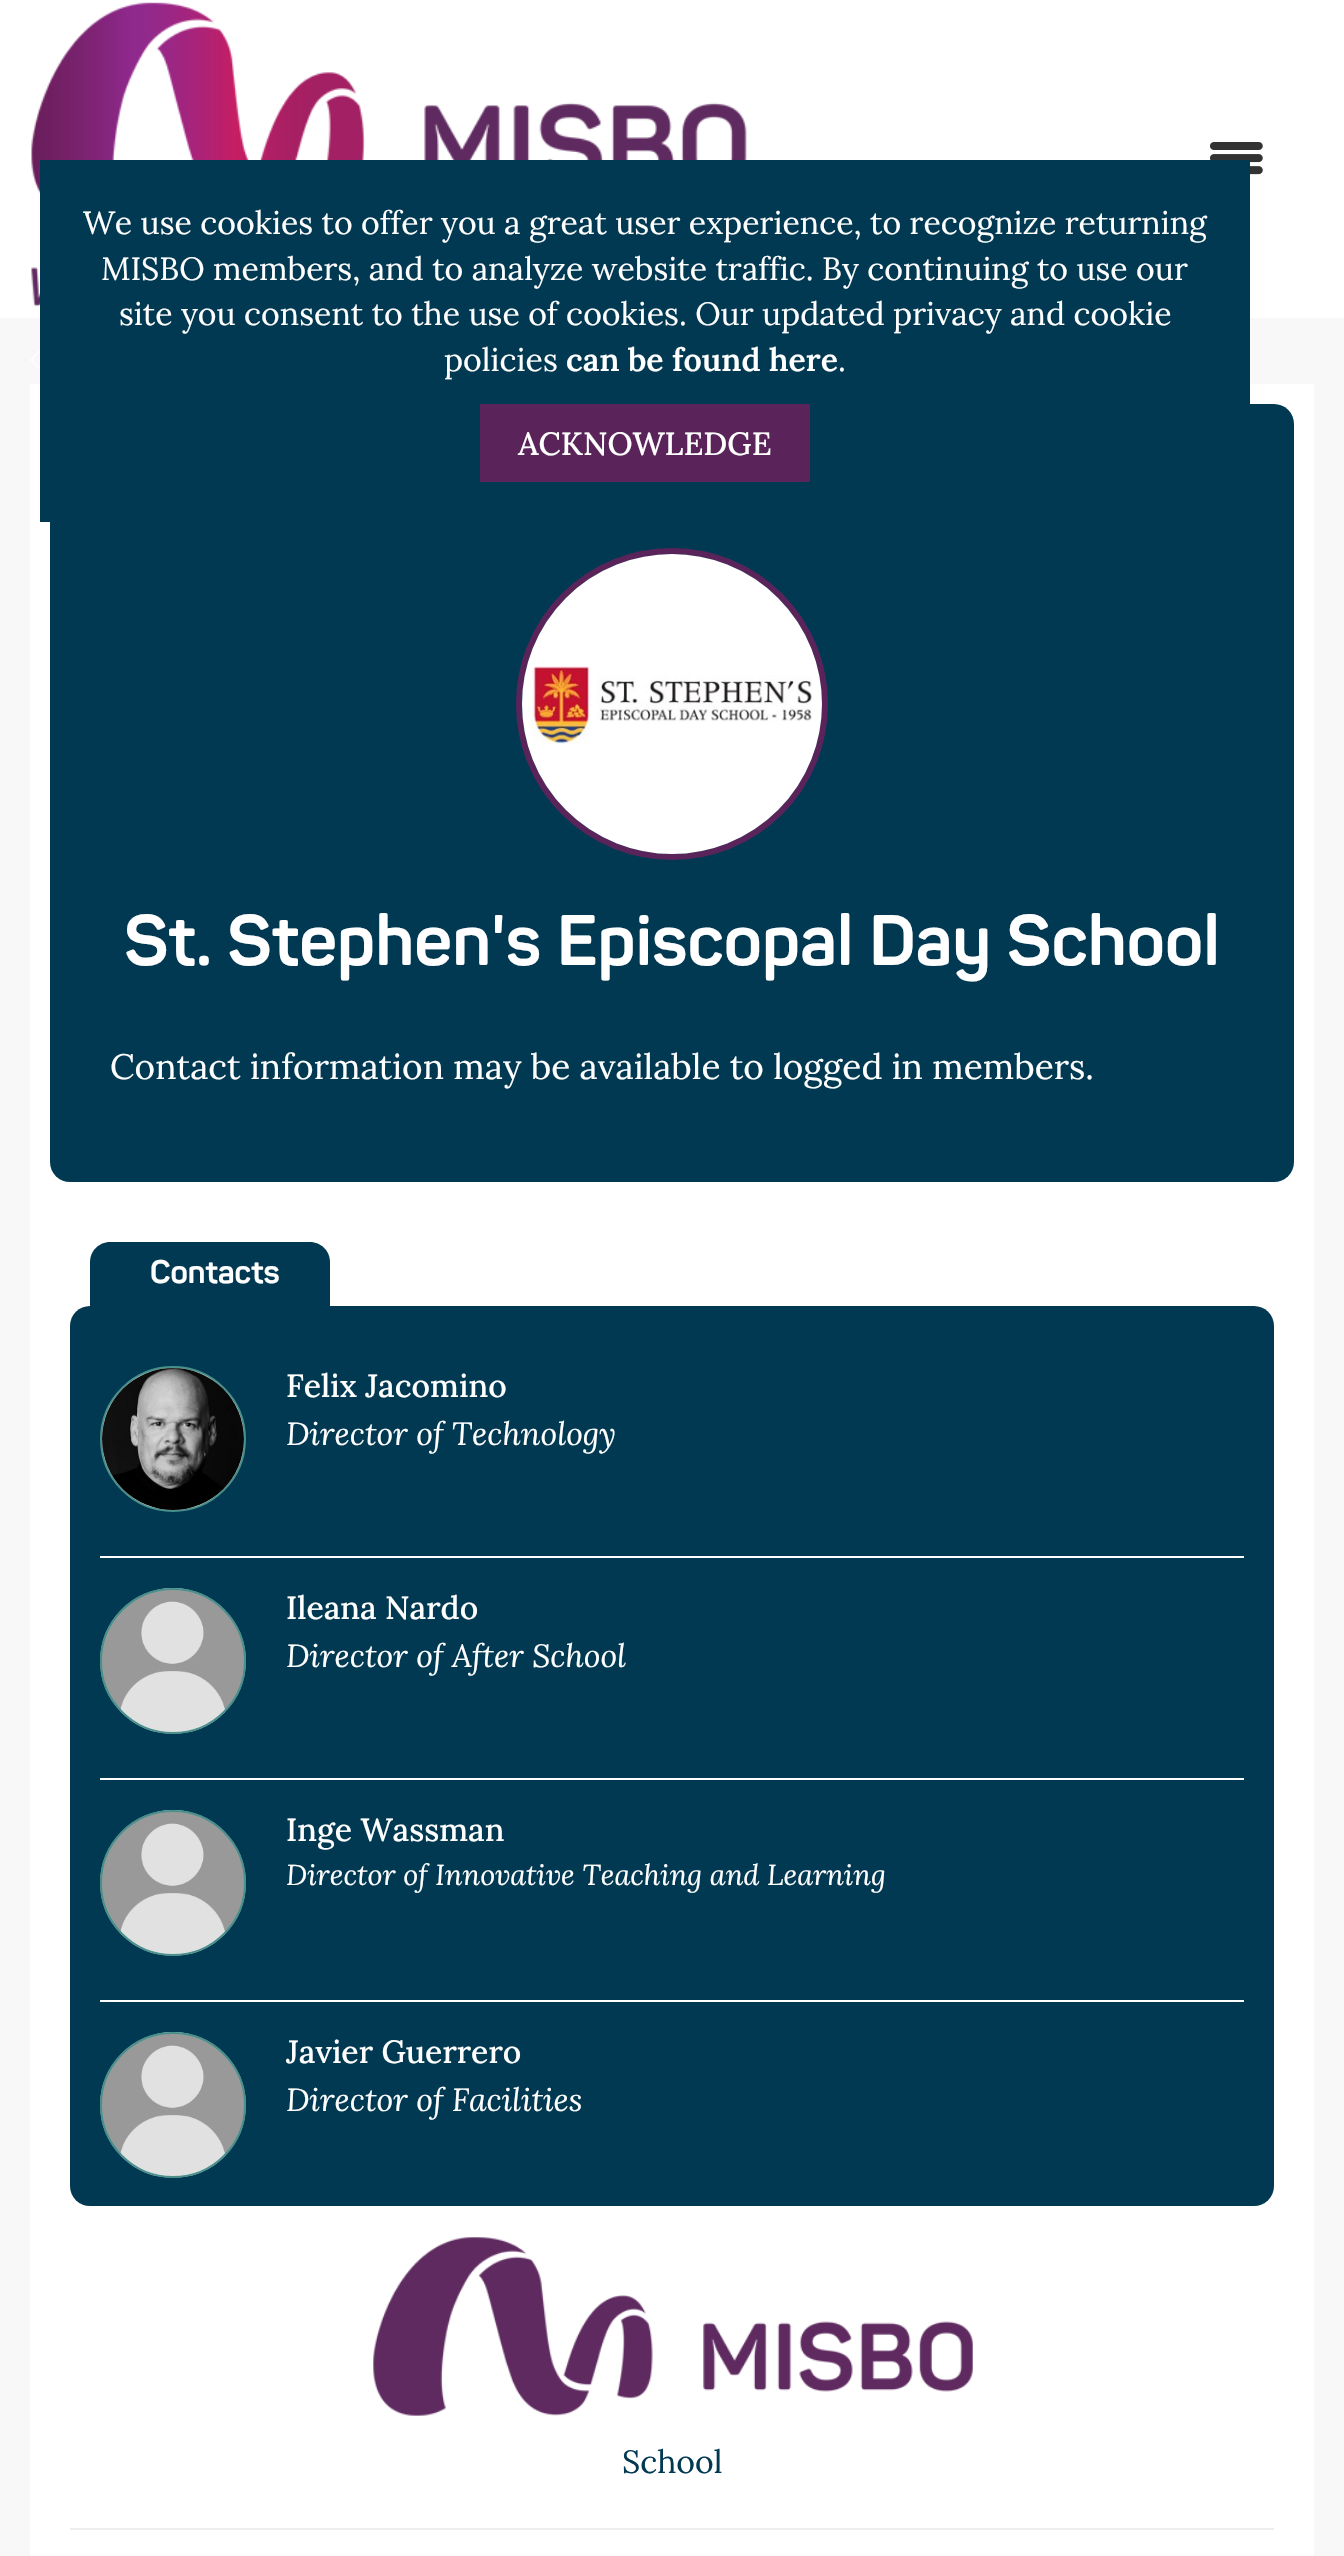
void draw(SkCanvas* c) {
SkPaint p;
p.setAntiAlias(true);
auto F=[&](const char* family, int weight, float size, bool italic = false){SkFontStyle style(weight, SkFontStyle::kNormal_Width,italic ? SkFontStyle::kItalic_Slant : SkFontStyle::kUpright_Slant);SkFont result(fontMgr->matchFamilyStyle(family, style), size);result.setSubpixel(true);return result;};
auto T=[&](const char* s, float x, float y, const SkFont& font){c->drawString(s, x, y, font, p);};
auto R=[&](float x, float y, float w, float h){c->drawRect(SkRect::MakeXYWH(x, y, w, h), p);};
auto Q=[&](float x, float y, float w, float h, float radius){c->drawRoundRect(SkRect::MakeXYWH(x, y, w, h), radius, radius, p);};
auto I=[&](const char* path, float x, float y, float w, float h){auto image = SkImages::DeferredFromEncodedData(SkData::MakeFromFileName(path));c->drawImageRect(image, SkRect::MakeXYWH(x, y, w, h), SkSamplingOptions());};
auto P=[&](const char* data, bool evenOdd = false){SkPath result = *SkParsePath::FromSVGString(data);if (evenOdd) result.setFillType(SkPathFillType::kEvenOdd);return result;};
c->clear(0xfff8f8f8);
p.setColor(0xffffffff);
R(0,0,1344,318);
I("1.png",31,2,716,305);
I("2.png",1210,142,53,33);
c->drawPath(P("M46.5 376l-16.5-16l16-16c1 0 1 .5 1 1l-15 15l15 15c0 .5 0 1-.5 1z"),p);
R(30,384,1284,2172);
p.setColor(0xff023952);
Q(50,404,1244,778,20);
R(40,160,1210,362);
auto f1 = F("Lora",400,32);
p.setColor(0xffffffff);
T("We use cookies to offer you a great user experience, to recognize returning",83,234,f1);
T("MISBO members, and to analyze website traffic. By continuing to use our",101,280,f1);
T("site you consent to the use of cookies. Our updated privacy and cookie",119,325,f1);
T("policies",444,371,f1);
auto f2 = F("Lora",600,32);
T("can be found here",566,371,f2);
T(".",838,371,f1);
p.setColor(0xff5a245a);
R(480,404,330,78);
auto f3 = F("Lora",500,32);
p.setColor(0xffffffff);
T("ACKNOWLEDGE",518,455,f3);
p.setStroke(true);
p.setStrokeWidth(6);
p.setColor(0xff5a245a);
c->drawCircle(672,704,153,p);
p.setStroke(false);
p.setColor(0xffffffff);
c->drawCircle(672,704,147,p);
p.setStroke(true);
c->drawCircle(672,704,147,p);
I("3.png",528,666,285,79);
auto f4 = F("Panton",700,70.4);
p.setStroke(false);
T("St. Stephen's Episcopal Day School",124,965,f4);
auto f5 = F("Lora",400,35.2);
T("Contact information may be available to logged in members.",110,1079,f5);
p.setColor(0xff023952);
c->drawPath(P("M110 1242h200c11 0 20 9 20 20v44h-240v-44c0-11 9-20 20-20z"),p);
auto f6 = F("Panton",700,32);
p.setColor(0xffffffff);
T("Contacts",150,1283,f6);
p.setColor(0xff023952);
Q(70,1306,1204,900,20);
p.setColor(0xffffffff);
R(100,1556,1144,2);
c->drawCircle(173,1439,72,p);
p.setStroke(true);
p.setStrokeWidth(2);
p.setColor(0xff47908c);
c->drawCircle(173,1439,72,p);
I("4.png",102,1368,142,142);
p.setStroke(false);
p.setColor(0xffffffff);
T("Felix Jacomino",286,1397,f3);
auto f7 = F("Lora",400,32,true);
T("Director of Technology",286,1445,f7);
R(100,1778,1144,2);
I("5.png",100,1588,146,146);
p.setStroke(true);
p.setColor(0xff47908c);
c->drawCircle(173,1661,72,p);
p.setStroke(false);
p.setColor(0xffffffff);
T("Ileana Nardo",286,1619,f3);
T("Director of After School",286,1667,f7);
R(100,2000,1144,2);
I("6.png",100,1810,146,146);
p.setStroke(true);
p.setColor(0xff47908c);
c->drawCircle(173,1883,72,p);
p.setStroke(false);
p.setColor(0xffffffff);
T("Inge Wassman",286,1841,f3);
auto f8 = F("Lora",400,28.8,true);
T("Director of Innovative Teaching and Learning",286,1885,f8);
I("5.png",100,2032,146,146);
p.setStroke(true);
p.setColor(0xff47908c);
c->drawCircle(173,2105,72,p);
p.setStroke(false);
p.setColor(0xffffffff);
T("Javier Guerrero",286,2063,f3);
T("Director of Facilities",286,2111,f7);
I("7.png",373,2237,600,179);
p.setColor(0xff023952);
T("School",622,2473,f1);
p.setColor(0xffeeeeee);
R(70,2528,1204,2);
}
